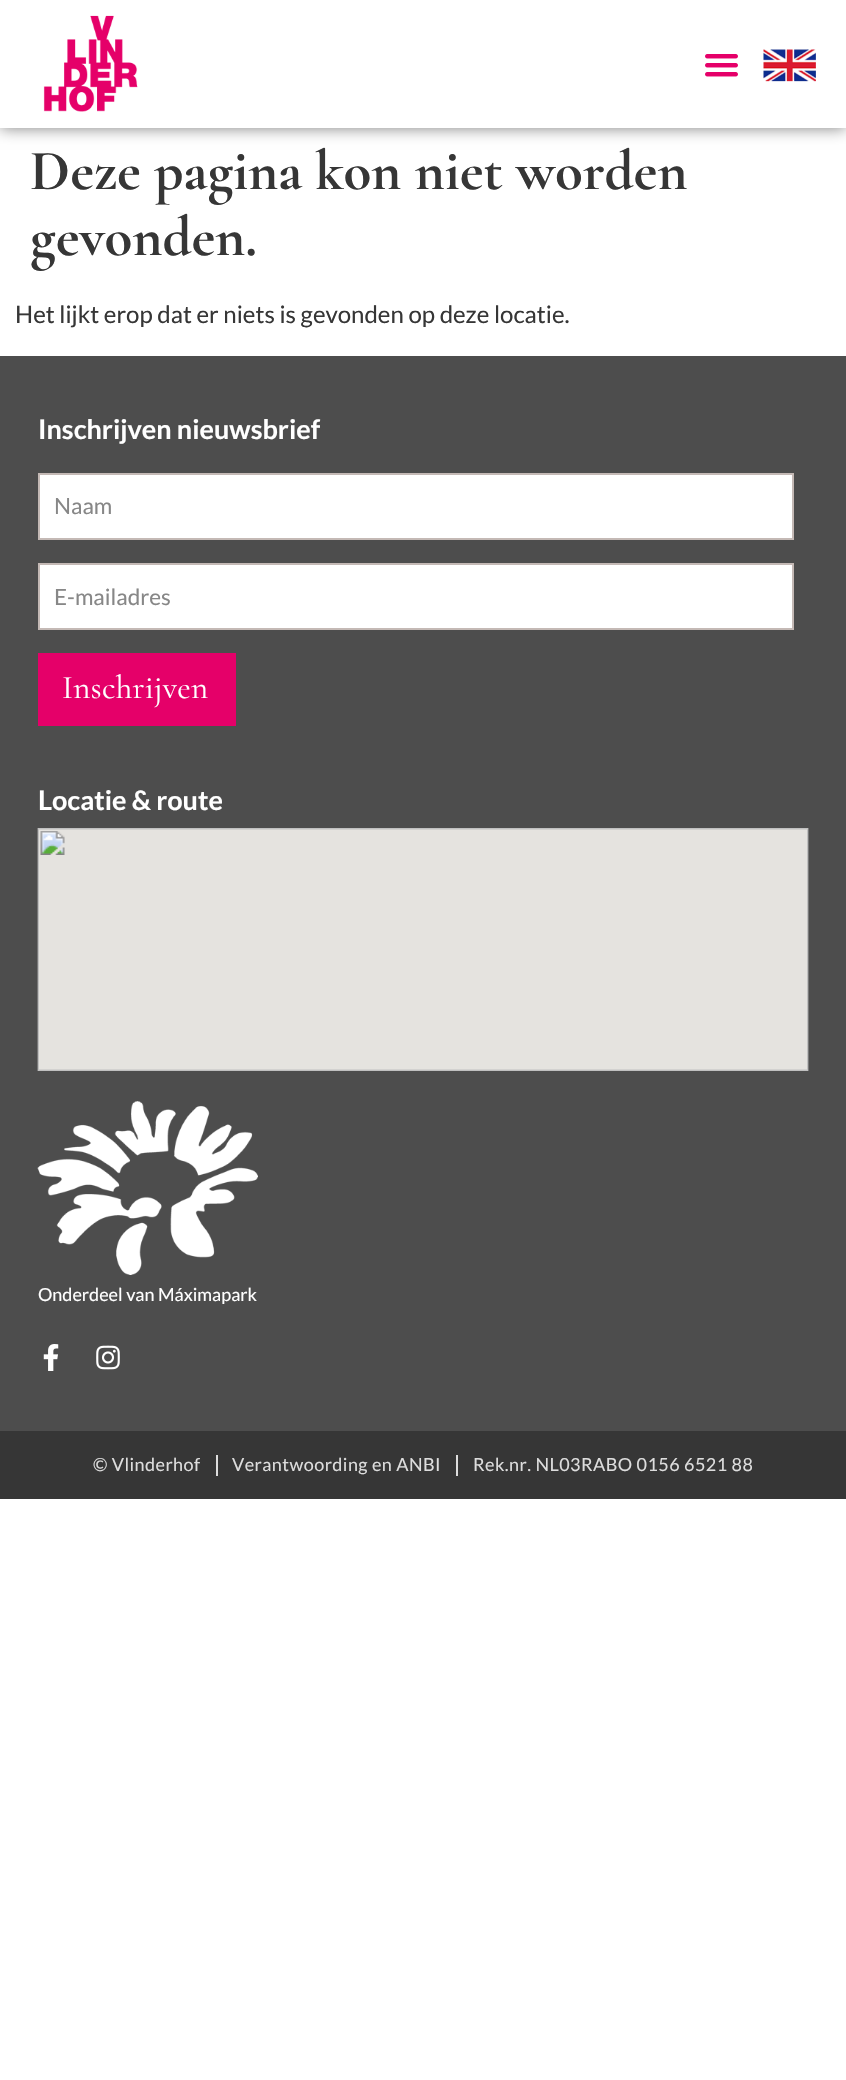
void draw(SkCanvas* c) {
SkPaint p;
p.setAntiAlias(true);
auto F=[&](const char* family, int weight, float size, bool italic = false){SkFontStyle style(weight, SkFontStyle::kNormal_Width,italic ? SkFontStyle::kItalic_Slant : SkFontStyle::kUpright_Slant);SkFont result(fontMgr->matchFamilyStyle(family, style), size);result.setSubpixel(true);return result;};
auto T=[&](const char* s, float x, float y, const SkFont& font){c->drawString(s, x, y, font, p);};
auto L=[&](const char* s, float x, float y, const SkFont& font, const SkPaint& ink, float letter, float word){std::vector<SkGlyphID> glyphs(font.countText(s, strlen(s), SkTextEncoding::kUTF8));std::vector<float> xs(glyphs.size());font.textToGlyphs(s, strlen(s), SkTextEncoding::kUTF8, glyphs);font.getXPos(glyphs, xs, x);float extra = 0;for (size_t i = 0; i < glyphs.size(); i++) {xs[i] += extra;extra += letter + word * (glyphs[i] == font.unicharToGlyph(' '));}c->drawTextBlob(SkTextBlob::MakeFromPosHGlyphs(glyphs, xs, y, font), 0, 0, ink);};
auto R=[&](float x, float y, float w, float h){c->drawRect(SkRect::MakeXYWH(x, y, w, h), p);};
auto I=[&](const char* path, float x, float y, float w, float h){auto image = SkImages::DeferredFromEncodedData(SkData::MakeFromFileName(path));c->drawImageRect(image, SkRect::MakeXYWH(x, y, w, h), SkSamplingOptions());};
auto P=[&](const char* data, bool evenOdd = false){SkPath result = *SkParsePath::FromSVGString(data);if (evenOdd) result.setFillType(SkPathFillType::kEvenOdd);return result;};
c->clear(0xffffffff);
c->save();
c->clipPath(P("M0 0h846v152h-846zm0 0h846v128h-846z",true),true);
p.setColor(0x80000000);
p.setMaskFilter(SkMaskFilter::MakeBlur(kNormal_SkBlurStyle, 7.5));
c->drawRect(SkRect::MakeXYWH(0,0,846,128),p);
p.setMaskFilter(nullptr);
c->restore();
I("1.png",43,15,95,97);
I("2.png",705,54,33,23);
I("3.png",763,49,53,33);
p.setColor(0xf2ffffff);
R(0,127,846,1);
auto f1 = F("Cormorant Garamond",700,57);
p.setColor(0xff363636);
T("Deze pagina kon niet worden",30,189,f1);
T("gevonden.",30,255,f1);
auto f2 = F("Lato",400,24);
T("Het lijkt erop dat er niets is gevonden op deze locatie.",15,323,f2);
p.setColor(0xff4d4d4d);
R(0,356,846,1075);
auto f3 = F("Lato",700,27);
p.setColor(0xffffffff);
T("Inschrijven nieuwsbrief",38,439,f3);
c->drawRect(SkRect::MakeXYWH(39,474,754,65),p);
p.setStroke(true);
p.setStrokeWidth(2);
p.setColor(0xffc4b9b5);
c->drawRect(SkRect::MakeXYWH(39,474,754,65),p);
auto f4 = F("Lato",400,22.5);
p.setStroke(false);
p.setColor(0xff878787);
T("Naam",54,514,f4);
p.setColor(0xffffffff);
c->drawRect(SkRect::MakeXYWH(39,564,754,65),p);
p.setStroke(true);
p.setColor(0xffc4b9b5);
c->drawRect(SkRect::MakeXYWH(39,564,754,65),p);
p.setStroke(false);
p.setColor(0xff878787);
T("E-mailadres",54,605,f4);
p.setColor(0xffe50069);
R(38,653,198,73);
auto f5 = F("Cormorant Garamond",400,33);
p.setColor(0xffffffff);
L("Inschrijven",62,698,f5,p,.25,0);
T("Locatie & route",38,810,f3);
I("4.png",37,828,772,243);
I("5.png",37,1101,221,174);
auto f6 = F("Lato",400,18);
T("Onderdeel van Máximapark",38,1301,f6);
I("6.png",43,1344,16,27);
I("7.png",96,1345,24,25);
p.setColor(0xff363636);
R(0,1431,846,68);
p.setColor(0xffdddddd);
L("© Vlinderhof",93,1471,f6,p,.45,0);
R(216,1455,2,21);
L("Verantwoording en ANBI",232,1471,f6,p,.45,0);
R(456,1455,2,21);
L("Rek.nr. NL03RABO 0156 6521 88",473,1471,f6,p,.45,0);
}
